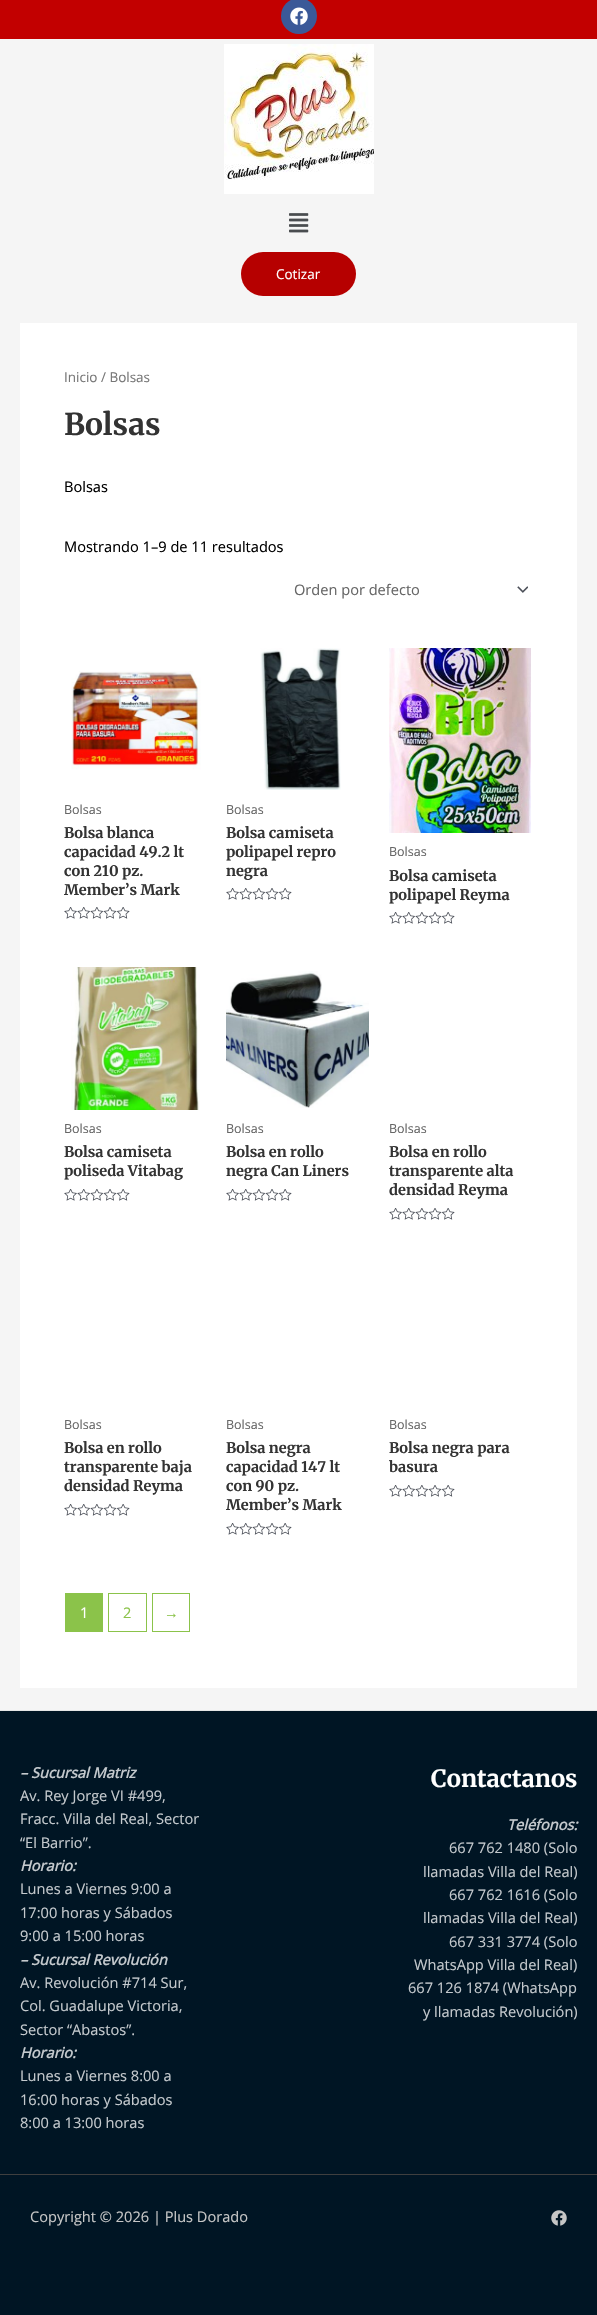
void draw(SkCanvas* c) {
SkPaint p;
p.setAntiAlias(true);
auto F=[&](const char* family, int weight, float size, bool italic = false){SkFontStyle style(weight, SkFontStyle::kNormal_Width,italic ? SkFontStyle::kItalic_Slant : SkFontStyle::kUpright_Slant);SkFont result(fontMgr->matchFamilyStyle(family, style), size);result.setSubpixel(true);return result;};
auto T=[&](const char* s, float x, float y, const SkFont& font){c->drawString(s, x, y, font, p);};
auto R=[&](float x, float y, float w, float h){c->drawRect(SkRect::MakeXYWH(x, y, w, h), p);};
auto Q=[&](float x, float y, float w, float h, float radius){c->drawRoundRect(SkRect::MakeXYWH(x, y, w, h), radius, radius, p);};
auto I=[&](const char* path, float x, float y, float w, float h){auto image = SkImages::DeferredFromEncodedData(SkData::MakeFromFileName(path));c->drawImageRect(image, SkRect::MakeXYWH(x, y, w, h), SkSamplingOptions());};
c->clear(0xfff5f5f5);
p.setColor(0xffc20000);
R(0,0,597,39);
p.setColor(0xff3b5998);
c->drawCircle(299,16,18,p);
I("1.png",290,7,18,18);
I("2.png",224,44,150,150);
I("3.png",289,213,20,20);
p.setColor(0xffb60000);
Q(241,252,115,44,22);
auto f1 = F("Open Sans",400,13.5);
p.setColor(0xffffffff);
T("Cotizar",276,279,f1);
R(20,323,557,1365);
p.setColor(0xff777777);
T("Inicio / Bolsas",64,382,f1);
auto f2 = F("Merriweather",300,30);
p.setColor(0xff333333);
T("Bolsas",64,435,f2);
auto f3 = F("Open Sans",400,14.6);
p.setColor(0xff000000);
T("Bolsas",64,492,f3);
T("Mostrando 1–9 de 11 resultados",64,552,f3);
I("4.png",517,586,11,7);
p.setColor(0xff666666);
T("Orden por defecto",294,595,f3);
I("5.png",71,671,130,99);
auto f4 = F("Open Sans",400,12.5);
T("Bolsas",64,814,f4);
auto f5 = F("Merriweather",300,14.6);
p.setColor(0xff333333);
T("Bolsa blanca",64,838,f5);
T("capacidad 49.2 lt",64,857,f5);
T("con 210 pz.",64,876,f5);
T("Member’s Mark",64,895,f5);
I("6.png",64,907,66,12);
I("7.png",260,648,81,142);
p.setColor(0xff666666);
T("Bolsas",226,814,f4);
p.setColor(0xff333333);
T("Bolsa camiseta",226,838,f5);
T("polipapel repro",226,857,f5);
T("negra",226,876,f5);
I("6.png",226,888,66,12);
I("8.png",389,648,142,185);
p.setColor(0xff666666);
T("Bolsas",389,856,f4);
p.setColor(0xff333333);
T("Bolsa camiseta",389,881,f5);
T("polipapel Reyma",389,900,f5);
I("6.png",389,912,66,12);
I("9.png",71,967,129,143);
p.setColor(0xff666666);
T("Bolsas",64,1133,f4);
p.setColor(0xff333333);
T("Bolsa camiseta",64,1157,f5);
T("poliseda Vitabag",64,1176,f5);
I("6.png",64,1189,66,12);
I("10.png",226,971,143,137);
p.setColor(0xff666666);
T("Bolsas",226,1133,f4);
p.setColor(0xff333333);
T("Bolsa en rollo",226,1157,f5);
T("negra Can Liners",226,1176,f5);
I("6.png",226,1189,66,12);
p.setColor(0xff666666);
T("Bolsas",389,1133,f4);
p.setColor(0xff333333);
T("Bolsa en rollo",389,1157,f5);
T("transparente alta",389,1176,f5);
T("densidad Reyma",389,1195,f5);
I("6.png",389,1208,66,12);
p.setColor(0xff666666);
T("Bolsas",64,1429,f4);
p.setColor(0xff333333);
T("Bolsa en rollo",64,1453,f5);
T("transparente baja",64,1472,f5);
T("densidad Reyma",64,1491,f5);
I("6.png",64,1504,66,12);
p.setColor(0xff666666);
T("Bolsas",226,1429,f4);
p.setColor(0xff333333);
T("Bolsa negra",226,1453,f5);
T("capacidad 147 lt",226,1472,f5);
T("con 90 pz.",226,1491,f5);
T("Member’s Mark",226,1510,f5);
I("6.png",226,1523,66,12);
p.setColor(0xff666666);
T("Bolsas",389,1429,f4);
p.setColor(0xff333333);
T("Bolsa negra para",389,1453,f5);
T("basura",389,1472,f5);
I("6.png",389,1485,66,12);
p.setStroke(true);
p.setStrokeWidth(1);
p.setColor(0xff8bc34a);
c->drawRect(SkRect::MakeXYWH(65.5,1593.5,37,38),p);
p.setStroke(false);
R(66,1594,36,37);
p.setColor(0xffffffff);
T("1",80,1618,f3);
p.setStroke(true);
p.setColor(0xff8bc34a);
c->drawRect(SkRect::MakeXYWH(108.5,1593.5,38,38),p);
p.setStroke(false);
T("2",123,1618,f3);
p.setStroke(true);
c->drawRect(SkRect::MakeXYWH(152.5,1593.5,37,38),p);
auto f6 = F("Liberation Sans",400,14.6);
p.setStroke(false);
T("→",164,1618,f6);
p.setColor(0xff001524);
R(0,1711,597,604);
p.setColor(0xffe6e6e6);
R(0,1710,597,1);
auto f7 = F("Open Sans",700,14.6,true);
p.setColor(0xffc4c9cd);
T("– Sucursal Matriz",20,1778,f7);
T("Av. Rey Jorge VI #499,",20,1801,f3);
T("Fracc. Villa del Real, Sector",20,1824,f3);
T("“El Barrio”.",20,1848,f3);
T("Horario:",20,1871,f7);
T("Lunes a Viernes 9:00 a",20,1894,f3);
T("17:00 horas y Sábados",20,1918,f3);
T("9:00 a 15:00 horas",20,1941,f3);
T("– Sucursal Revolución",20,1965,f7);
T("Av. Revolución #714 Sur,",20,1988,f3);
T("Col. Guadalupe Victoria,",20,2011,f3);
T("Sector “Abastos”.",20,2035,f3);
T("Horario:",20,2058,f7);
T("Lunes a Viernes 8:00 a",20,2081,f3);
T("16:00 horas y Sábados",20,2105,f3);
T("8:00 a 13:00 horas",20,2128,f3);
auto f8 = F("Merriweather",300,23.75);
p.setColor(0xffffffff);
T("Contactanos",431,1787,f8);
p.setColor(0xffc4c9cd);
T("Teléfonos:",507,1830,f7);
T("667 762 1480 (Solo",449,1853,f3);
T("llamadas Villa del Real)",423,1877,f3);
T("667 762 1616 (Solo",449,1900,f3);
T("llamadas Villa del Real)",423,1923,f3);
T("667 331 3774 (Solo",449,1947,f3);
T("WhatsApp Villa del Real)",414,1970,f3);
T("667 126 1874 (WhatsApp",408,1993,f3);
T("y llamadas Revolución)",423,2017,f3);
p.setColor(0xff3f3f3f);
R(0,2174,597,1);
p.setColor(0xffc6c6c6);
T("Copyright © 2026 | Plus Dorado",30,2222,f3);
I("11.png",551,2210,16,16);
}
